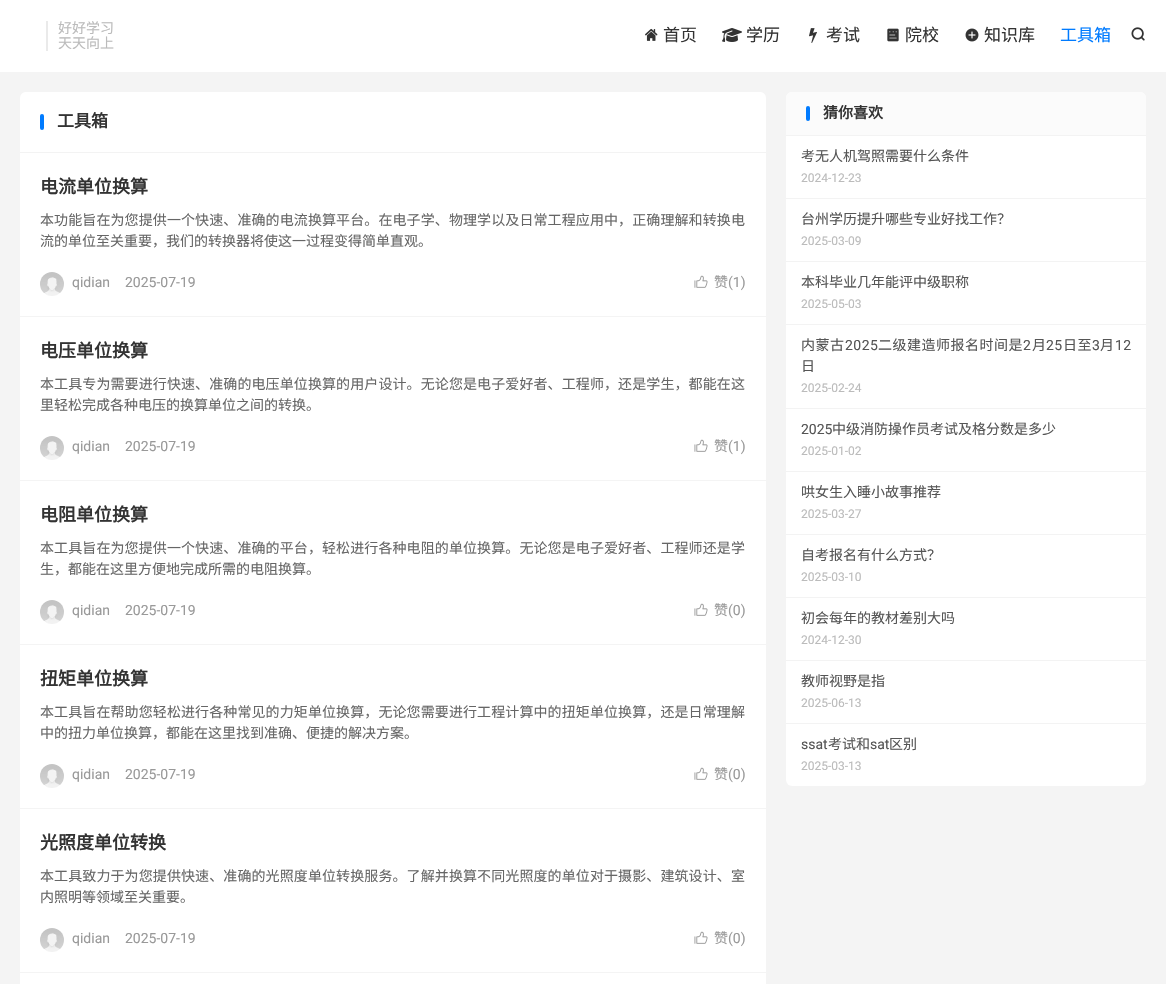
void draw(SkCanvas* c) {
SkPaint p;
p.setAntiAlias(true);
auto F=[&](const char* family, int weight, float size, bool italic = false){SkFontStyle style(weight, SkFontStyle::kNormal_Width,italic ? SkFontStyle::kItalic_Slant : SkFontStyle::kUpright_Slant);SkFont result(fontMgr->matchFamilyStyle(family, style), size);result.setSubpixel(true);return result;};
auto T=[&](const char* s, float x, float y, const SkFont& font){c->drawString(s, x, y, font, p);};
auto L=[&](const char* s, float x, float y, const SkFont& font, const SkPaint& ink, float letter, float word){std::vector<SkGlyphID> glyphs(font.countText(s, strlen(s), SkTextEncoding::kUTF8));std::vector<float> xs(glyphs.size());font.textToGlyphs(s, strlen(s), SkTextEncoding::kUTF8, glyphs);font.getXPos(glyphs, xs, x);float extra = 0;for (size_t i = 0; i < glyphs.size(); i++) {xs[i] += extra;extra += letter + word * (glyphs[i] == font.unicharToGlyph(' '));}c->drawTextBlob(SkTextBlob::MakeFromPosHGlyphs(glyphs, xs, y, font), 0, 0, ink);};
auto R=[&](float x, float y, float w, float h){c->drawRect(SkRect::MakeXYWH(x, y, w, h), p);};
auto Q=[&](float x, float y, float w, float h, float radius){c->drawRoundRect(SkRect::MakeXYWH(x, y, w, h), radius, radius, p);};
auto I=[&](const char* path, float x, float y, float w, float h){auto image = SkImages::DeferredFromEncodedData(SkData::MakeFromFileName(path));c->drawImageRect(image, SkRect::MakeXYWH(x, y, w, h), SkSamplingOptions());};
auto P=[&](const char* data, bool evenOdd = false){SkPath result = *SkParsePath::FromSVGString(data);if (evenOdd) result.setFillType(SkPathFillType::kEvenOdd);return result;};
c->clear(0xfff4f4f4);
p.setColor(0xffffffff);
R(0,0,1166,72);
p.setColor(0xffeaeaea);
R(46,21,2,30);
auto f1 = F("Noto Sans CJK SC",400,14);
p.setColor(0xffbbbbbb);
T("好好学习",58,33,f1);
T("天天向上",58,48,f1);
I("1.png",645,28,13,13);
auto f2 = F("Noto Sans CJK SC",400,17);
p.setColor(0xff333333);
T("首页",663,41,f2);
I("2.png",722,28,20,14);
T("学历",746,41,f2);
I("3.png",809,28,8,15);
T("考试",826,41,f2);
I("4.png",887,28,12,14);
T("院校",905,41,f2);
I("5.png",965,28,14,14);
T("知识库",984,41,f2);
p.setColor(0xff007bff);
T("工具箱",1060,41,f2);
I("6.png",1131,27,14,14);
p.setColor(0xffffffff);
c->drawPath(P("M26 92h734c3.5 0 6 2.5 6 6v55h-746v-55c0-3.5 2.5-6 6-6z"),p);
p.setColor(0xfff3f3f3);
R(20,152,746,1);
p.setColor(0xff007bff);
Q(40,114,4,16,2);
auto f3 = F("Noto Sans CJK SC",700,17);
p.setColor(0xff333333);
T("工具箱",57,127,f3);
p.setColor(0xffffffff);
R(20,153,746,163);
auto f4 = F("Noto Sans CJK SC",700,18);
p.setColor(0xff333333);
T("电流单位换算",40,193,f4);
p.setColor(0xff666666);
L("本功能旨在为您提供一个快速、准确的电流换算平台。在电子学、物理学以及日常工程应用中，正确理解和转换电",40,225,f1,p,.1,0);
T("流的单位至关重要，我们的转换器将使这一过程变得简单直观。",40,246,f1);
I("7.png",40,272,24,24);
auto f5 = F("Roboto",400,14);
p.setColor(0xff999999);
T("qidian",72,287,f5);
T("2025-07-19",125,287,f5);
I("8.png",694,275,14,13);
T("赞",714,287,f1);
T("(1)",728,287,f5);
p.setColor(0xffffffff);
R(20,317,746,163);
p.setColor(0xff333333);
T("电压单位换算",40,357,f4);
p.setColor(0xff666666);
L("本工具专为需要进行快速、准确的电压单位换算的用户设计。无论您是电子爱好者、工程师，还是学生，都能在这",40,389,f1,p,.1,0);
T("里轻松完成各种电压的换算单位之间的转换。",40,410,f1);
I("7.png",40,436,24,24);
p.setColor(0xff999999);
T("qidian",72,451,f5);
T("2025-07-19",125,451,f5);
I("8.png",694,439,14,13);
T("赞",714,451,f1);
T("(1)",728,451,f5);
p.setColor(0xffffffff);
R(20,481,746,163);
p.setColor(0xff333333);
T("电阻单位换算",40,521,f4);
p.setColor(0xff666666);
L("本工具旨在为您提供一个快速、准确的平台，轻松进行各种电阻的单位换算。无论您是电子爱好者、工程师还是学",40,553,f1,p,.1,0);
T("生，都能在这里方便地完成所需的电阻换算。",40,574,f1);
I("7.png",40,600,24,24);
p.setColor(0xff999999);
T("qidian",72,615,f5);
T("2025-07-19",125,615,f5);
I("8.png",694,603,14,13);
T("赞",714,615,f1);
T("(0)",728,615,f5);
p.setColor(0xffffffff);
R(20,645,746,163);
p.setColor(0xff333333);
T("扭矩单位换算",40,685,f4);
p.setColor(0xff666666);
L("本工具旨在帮助您轻松进行各种常见的力矩单位换算，无论您需要进行工程计算中的扭矩单位换算，还是日常理解",40,717,f1,p,.1,0);
T("中的扭力单位换算，都能在这里找到准确、便捷的解决方案。",40,738,f1);
I("7.png",40,764,24,24);
p.setColor(0xff999999);
T("qidian",72,779,f5);
T("2025-07-19",125,779,f5);
I("8.png",694,767,14,13);
T("赞",714,779,f1);
T("(0)",728,779,f5);
p.setColor(0xffffffff);
R(20,809,746,163);
p.setColor(0xff333333);
T("光照度单位转换",40,849,f4);
p.setColor(0xff666666);
L("本工具致力于为您提供快速、准确的光照度单位转换服务。了解并换算不同光照度的单位对于摄影、建筑设计、室",40,881,f1,p,.1,0);
T("内照明等领域至关重要。",40,902,f1);
I("7.png",40,928,24,24);
p.setColor(0xff999999);
T("qidian",72,943,f5);
T("2025-07-19",125,943,f5);
I("8.png",694,931,14,13);
T("赞",714,943,f1);
T("(0)",728,943,f5);
p.setColor(0xffffffff);
R(20,973,746,11);
Q(786,92,360,694,6);
p.setColor(0xfffbfbfb);
c->drawPath(P("M792 92h348c3.5 0 6 2.5 6 6v38h-360v-38c0-3.5 2.5-6 6-6z"),p);
p.setColor(0xfff3f3f3);
R(786,135,360,1);
p.setColor(0xff007bff);
Q(806,106,4,15,2);
auto f6 = F("Noto Sans CJK SC",700,15);
p.setColor(0xff333333);
T("猜你喜欢",823,118,f6);
p.setColor(0xfff3f3f3);
R(786,198,360,1);
p.setColor(0xff555555);
T("考无人机驾照需要什么条件",801,161,f1);
auto f7 = F("Roboto",400,12);
p.setColor(0xffbbbbbb);
T("2024-12-23",801,182,f7);
p.setColor(0xfff3f3f3);
R(786,261,360,1);
p.setColor(0xff555555);
T("台州学历提升哪些专业好找工作？",801,224,f1);
p.setColor(0xffbbbbbb);
T("2025-03-09",801,245,f7);
p.setColor(0xfff3f3f3);
R(786,324,360,1);
p.setColor(0xff555555);
T("本科毕业几年能评中级职称",801,287,f1);
p.setColor(0xffbbbbbb);
T("2025-05-03",801,308,f7);
p.setColor(0xfff3f3f3);
R(786,408,360,1);
p.setColor(0xff555555);
L("内蒙古",801,350,f1,p,.5,0);
L("2025",845,350,f5,p,.5,0);
L("二级建造师报名时间是",878,350,f1,p,.5,0);
L("2",1023,350,f5,p,.5,0);
L("月",1032,350,f1,p,.5,0);
L("25",1046,350,f5,p,.5,0);
L("日至",1063,350,f1,p,.5,0);
L("3",1092,350,f5,p,.5,0);
L("月",1100,350,f1,p,.5,0);
L("12",1115,350,f5,p,.5,0);
T("日",801,371,f1);
p.setColor(0xffbbbbbb);
T("2025-02-24",801,392,f7);
p.setColor(0xfff3f3f3);
R(786,471,360,1);
p.setColor(0xff555555);
T("2025",801,434,f5);
T("中级消防操作员考试及格分数是多少",832,434,f1);
p.setColor(0xffbbbbbb);
T("2025-01-02",801,455,f7);
p.setColor(0xfff3f3f3);
R(786,534,360,1);
p.setColor(0xff555555);
T("哄女生入睡小故事推荐",801,497,f1);
p.setColor(0xffbbbbbb);
T("2025-03-27",801,518,f7);
p.setColor(0xfff3f3f3);
R(786,597,360,1);
p.setColor(0xff555555);
T("自考报名有什么方式？",801,560,f1);
p.setColor(0xffbbbbbb);
T("2025-03-10",801,581,f7);
p.setColor(0xfff3f3f3);
R(786,660,360,1);
p.setColor(0xff555555);
T("初会每年的教材差别大吗",801,623,f1);
p.setColor(0xffbbbbbb);
T("2024-12-30",801,644,f7);
p.setColor(0xfff3f3f3);
R(786,723,360,1);
p.setColor(0xff555555);
T("教师视野是指",801,686,f1);
p.setColor(0xffbbbbbb);
T("2025-06-13",801,707,f7);
p.setColor(0xff555555);
T("ssat",801,749,f5);
T("考试和",828,749,f1);
T("sat",870,749,f5);
T("区别",889,749,f1);
p.setColor(0xffbbbbbb);
T("2025-03-13",801,770,f7);
}
